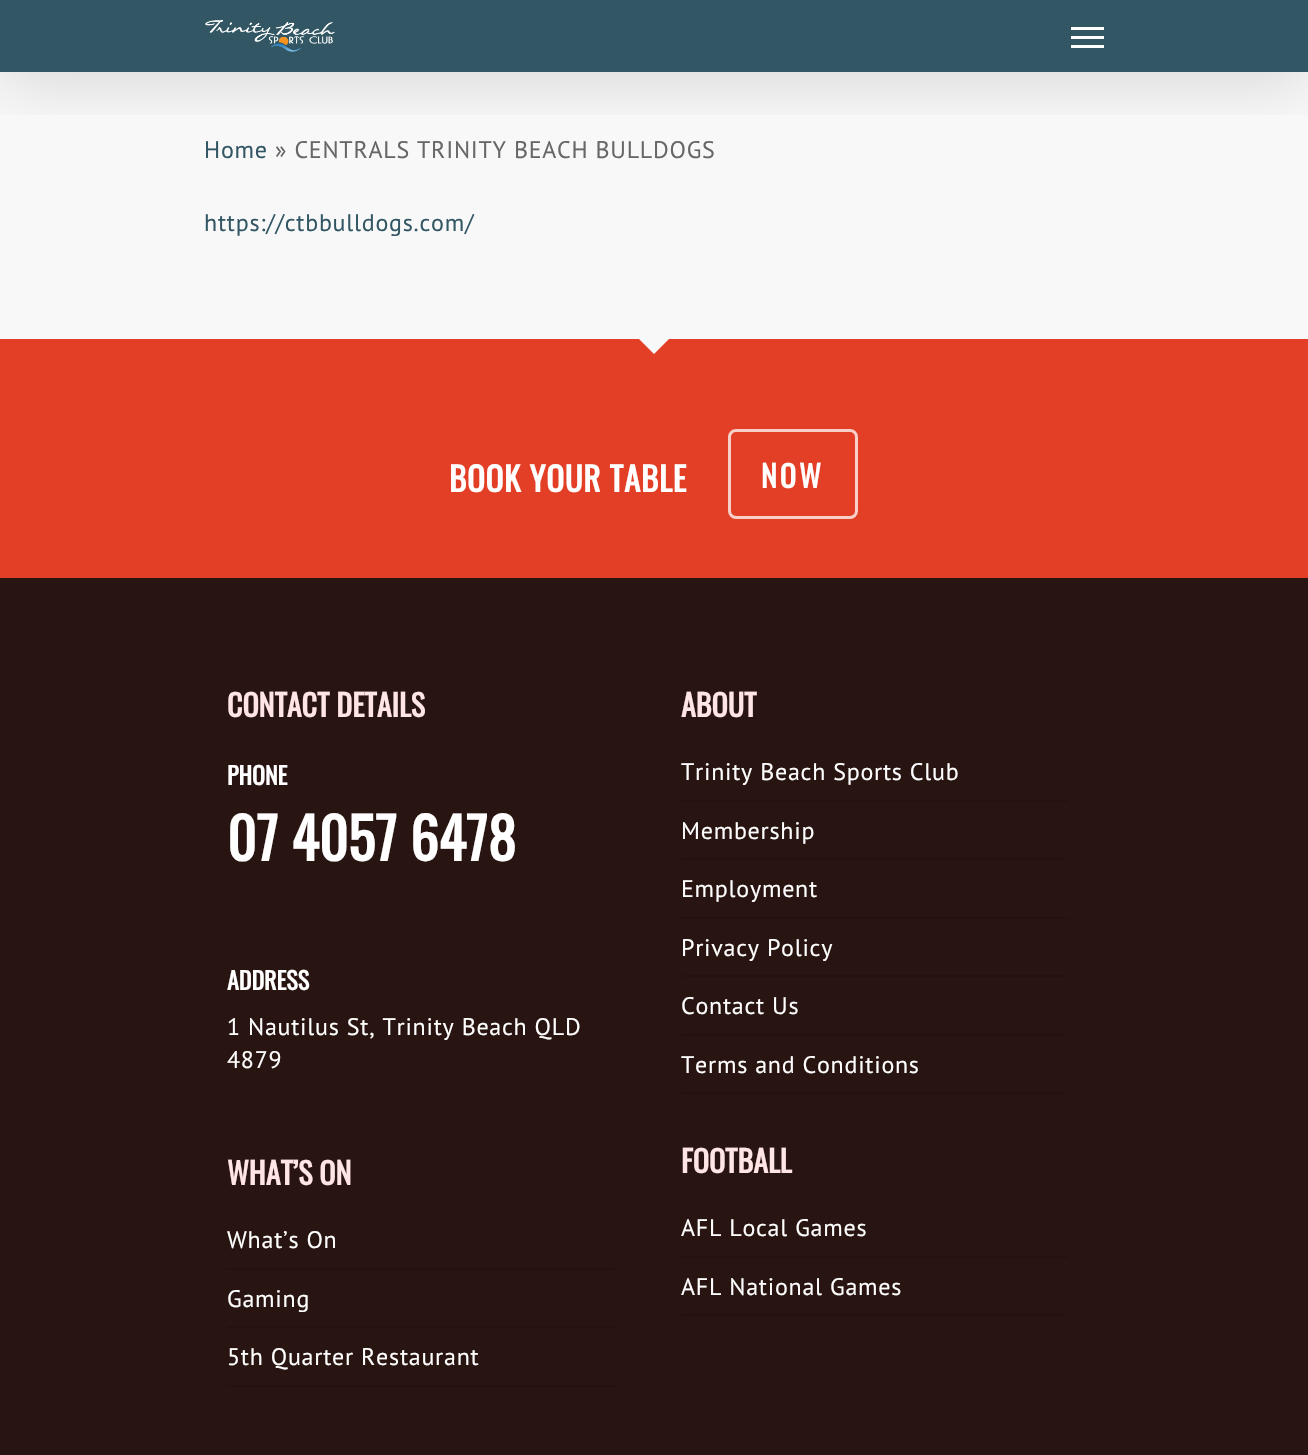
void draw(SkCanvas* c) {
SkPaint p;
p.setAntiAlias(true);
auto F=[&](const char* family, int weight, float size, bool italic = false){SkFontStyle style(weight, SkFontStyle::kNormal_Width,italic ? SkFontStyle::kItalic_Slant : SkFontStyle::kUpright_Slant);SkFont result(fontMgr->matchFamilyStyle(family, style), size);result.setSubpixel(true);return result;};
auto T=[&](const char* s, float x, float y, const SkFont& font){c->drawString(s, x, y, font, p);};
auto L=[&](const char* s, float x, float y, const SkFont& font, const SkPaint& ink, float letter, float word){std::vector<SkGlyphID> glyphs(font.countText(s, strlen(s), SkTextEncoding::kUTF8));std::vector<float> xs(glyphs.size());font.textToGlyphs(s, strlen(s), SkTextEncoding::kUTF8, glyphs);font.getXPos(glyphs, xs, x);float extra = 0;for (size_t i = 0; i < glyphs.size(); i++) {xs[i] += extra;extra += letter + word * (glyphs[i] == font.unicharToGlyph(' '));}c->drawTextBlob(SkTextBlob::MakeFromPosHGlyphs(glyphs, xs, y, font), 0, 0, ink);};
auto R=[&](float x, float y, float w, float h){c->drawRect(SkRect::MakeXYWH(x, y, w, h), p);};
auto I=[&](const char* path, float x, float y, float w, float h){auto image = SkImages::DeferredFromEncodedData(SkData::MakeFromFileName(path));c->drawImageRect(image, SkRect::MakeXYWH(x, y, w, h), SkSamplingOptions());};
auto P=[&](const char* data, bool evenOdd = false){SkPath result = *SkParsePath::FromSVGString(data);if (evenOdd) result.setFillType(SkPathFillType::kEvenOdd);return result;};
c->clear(0xff325663);
p.setColor(0xfff8f8f8);
R(0,72,1308,267);
c->save();
c->clipRect(SkRect::MakeXYWH(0,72,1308,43));
p.setColor(0x26000000);
p.setMaskFilter(SkMaskFilter::MakeBlur(kNormal_SkBlurStyle, 34));
c->drawRect(SkRect::MakeXYWH(0,5,1308,72),p);
p.setMaskFilter(nullptr);
c->restore();
I("1.png",205,19,130,33);
p.setColor(0xffffffff);
R(1071,27,33,3);
R(1071,45,33,3);
R(1071,36,33,3);
auto f1 = F("PT Sans",400,24);
p.setColor(0xff325663);
L("Home",204,158,f1,p,.75,0);
p.setColor(0xff676767);
L("» CENTRALS TRINITY BEACH BULLDOGS",275,158,f1,p,.75,0);
p.setColor(0xff325663);
L("https://ctbbulldogs.com/",204,231,f1,p,.75,0);
p.setColor(0xff281410);
R(0,578,1308,877);
p.setColor(0xffe33f26);
R(0,339,1308,239);
p.setColor(0xfff8f8f8);
c->drawPath(P("M639 339h30l-15 15z"),p);
auto f2 = F("Oswald",700,33);
p.setColor(0xffffffff);
L("BOOK YOUR TABLE",449,492,f2,p,.75,0);
p.setStroke(true);
p.setStrokeWidth(3);
p.setColor(0xfff8cfc9);
c->drawRoundRect(SkRect::MakeXYWH(729.5,430.5,127,87),6.5,6.5,p);
auto f3 = F("Oswald",700,30);
p.setStroke(false);
p.setColor(0xffffffff);
L("NOW",761,488,f3,p,3,0);
p.setColor(0xffffe5e5);
T("CONTACT DETAILS",227,717,f3);
auto f4 = F("Oswald",700,24);
p.setColor(0xffffffff);
T("PHONE",227,785,f4);
auto f5 = F("Oswald",700,56.75);
T("07 4057 6478",227,861,f5);
T("ADDRESS",227,990,f4);
L("1 Nautilus St, Trinity Beach QLD",227,1035,f1,p,.75,0);
L("4879",227,1068,f1,p,.75,0);
p.setColor(0xffffe5e5);
T("WHAT’S ON",227,1185,f3);
p.setColor(0xff24120e);
R(227,1268,387,2);
p.setColor(0xffffffff);
L("What’s On",227,1248,f1,p,.75,0);
p.setColor(0xff24120e);
R(227,1326,387,2);
p.setColor(0xffffffff);
L("Gaming",227,1307,f1,p,.75,0);
p.setColor(0xff24120e);
R(227,1385,387,2);
p.setColor(0xffffffff);
L("5th Quarter Restaurant",227,1365,f1,p,.75,0);
p.setColor(0xffffe5e5);
T("ABOUT",681,717,f3);
p.setColor(0xff24120e);
R(681,800,387,2);
p.setColor(0xffffffff);
L("Trinity Beach Sports Club",681,780,f1,p,.75,0);
p.setColor(0xff24120e);
R(681,858,387,2);
p.setColor(0xffffffff);
L("Membership",681,839,f1,p,.75,0);
p.setColor(0xff24120e);
R(681,917,387,2);
p.setColor(0xffffffff);
L("Employment",681,897,f1,p,.75,0);
p.setColor(0xff24120e);
R(681,975,387,2);
p.setColor(0xffffffff);
L("Privacy Policy",681,956,f1,p,.75,0);
p.setColor(0xff24120e);
R(681,1034,387,2);
p.setColor(0xffffffff);
L("Contact Us",681,1014,f1,p,.75,0);
p.setColor(0xff24120e);
R(681,1092,387,2);
p.setColor(0xffffffff);
L("Terms and Conditions",681,1073,f1,p,.75,0);
p.setColor(0xffffe5e5);
T("FOOTBALL",681,1173,f3);
p.setColor(0xff24120e);
R(681,1256,387,2);
p.setColor(0xffffffff);
L("AFL Local Games",681,1236,f1,p,.75,0);
p.setColor(0xff24120e);
R(681,1314,387,2);
p.setColor(0xffffffff);
L("AFL National Games",681,1295,f1,p,.75,0);
}
